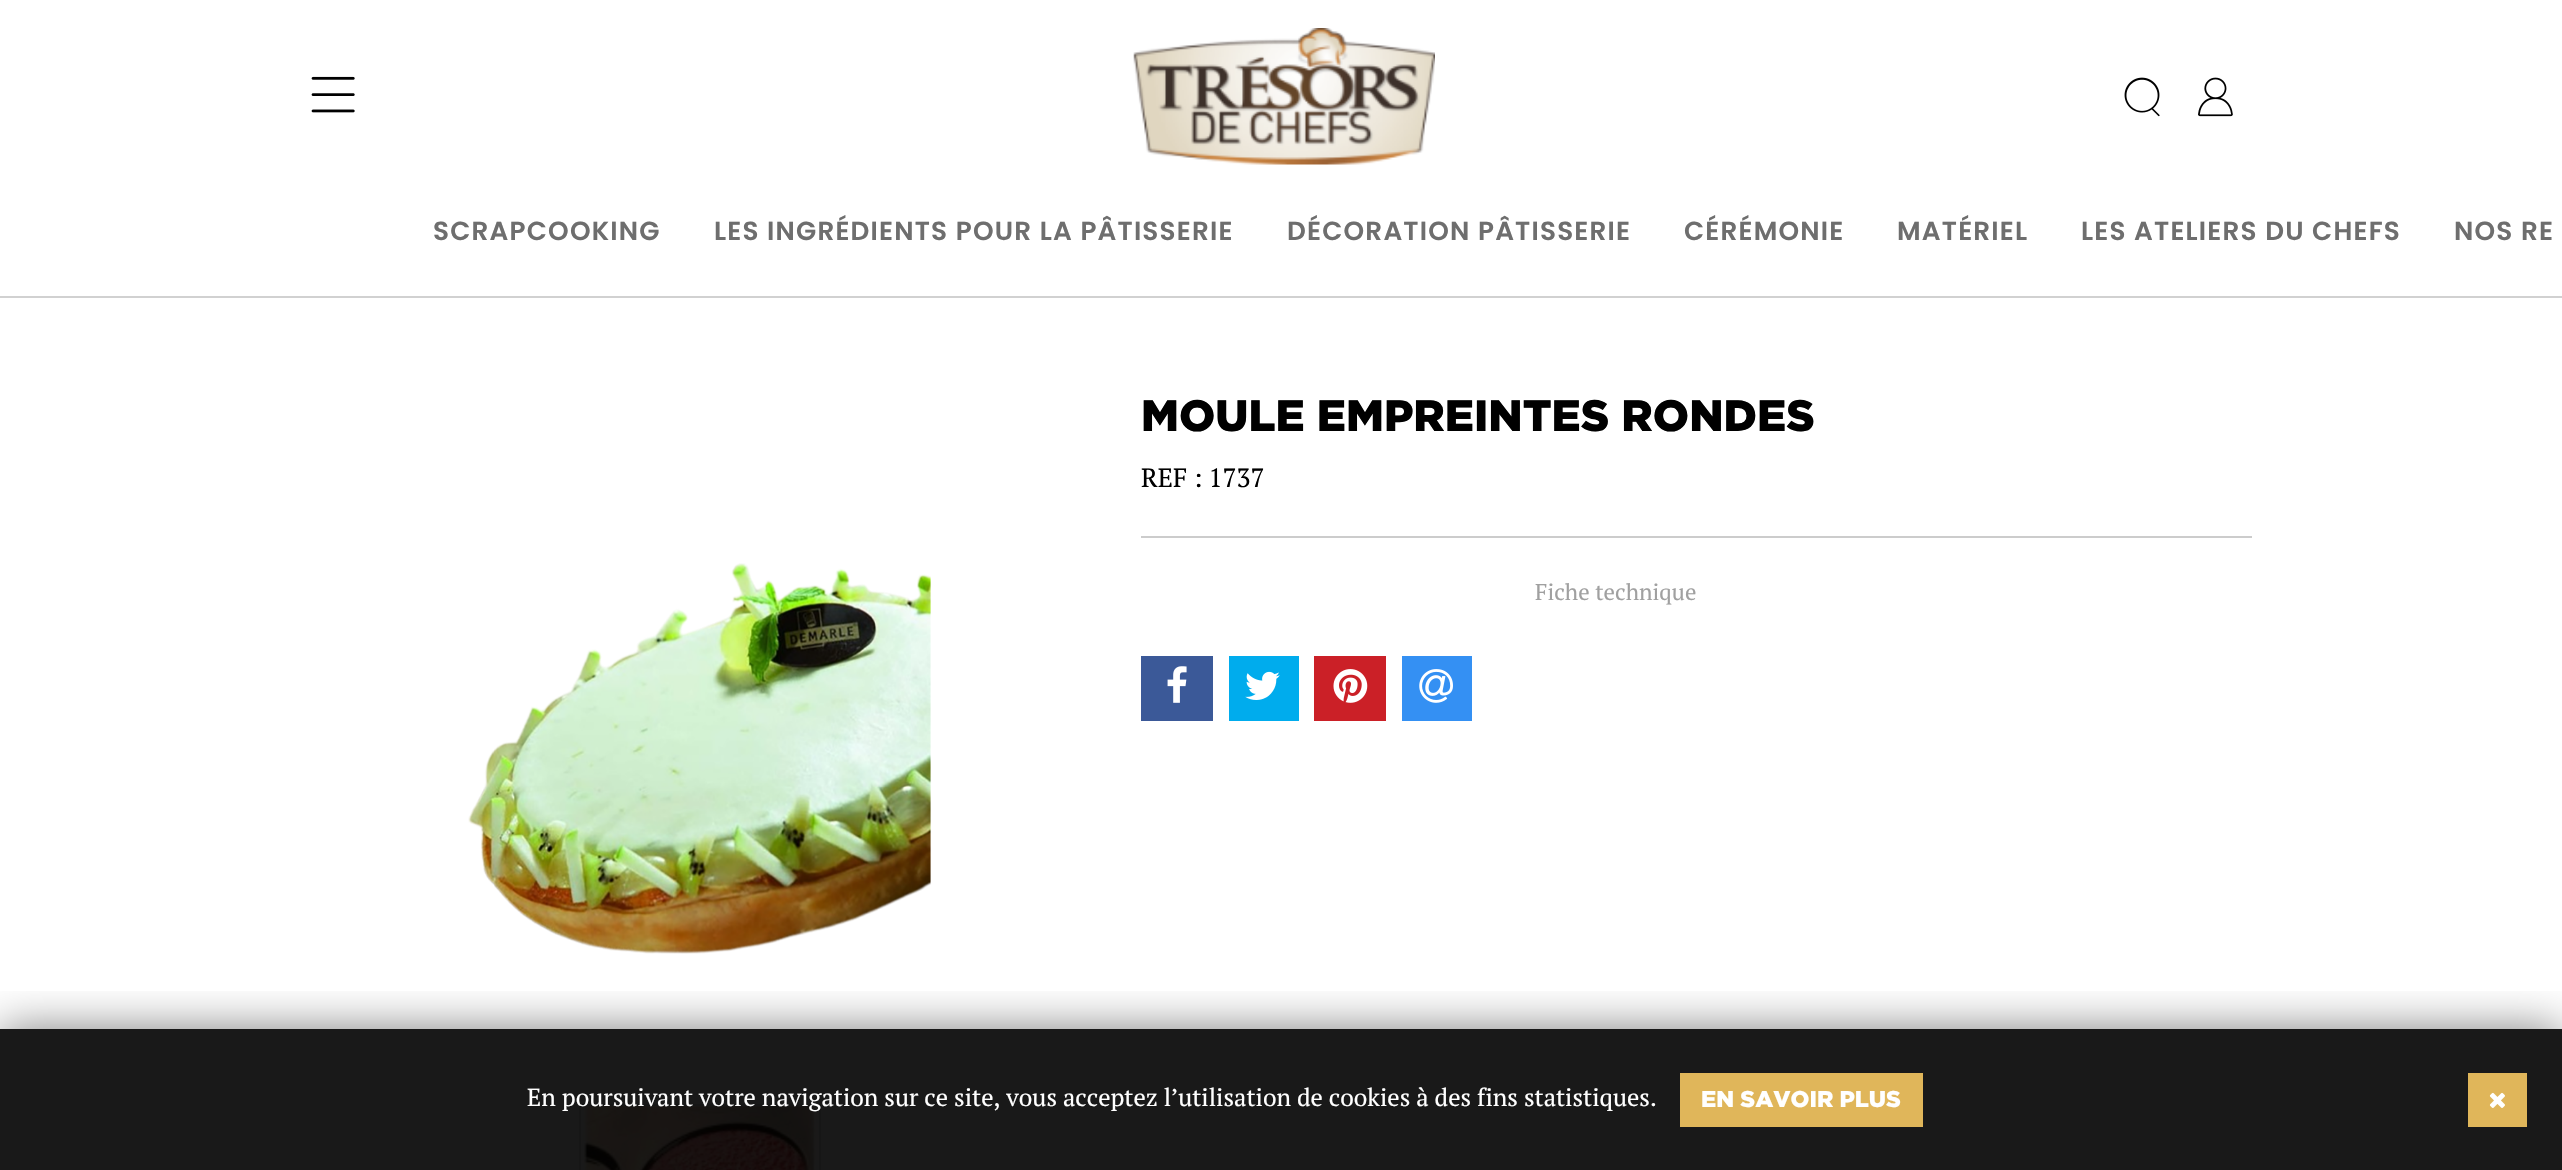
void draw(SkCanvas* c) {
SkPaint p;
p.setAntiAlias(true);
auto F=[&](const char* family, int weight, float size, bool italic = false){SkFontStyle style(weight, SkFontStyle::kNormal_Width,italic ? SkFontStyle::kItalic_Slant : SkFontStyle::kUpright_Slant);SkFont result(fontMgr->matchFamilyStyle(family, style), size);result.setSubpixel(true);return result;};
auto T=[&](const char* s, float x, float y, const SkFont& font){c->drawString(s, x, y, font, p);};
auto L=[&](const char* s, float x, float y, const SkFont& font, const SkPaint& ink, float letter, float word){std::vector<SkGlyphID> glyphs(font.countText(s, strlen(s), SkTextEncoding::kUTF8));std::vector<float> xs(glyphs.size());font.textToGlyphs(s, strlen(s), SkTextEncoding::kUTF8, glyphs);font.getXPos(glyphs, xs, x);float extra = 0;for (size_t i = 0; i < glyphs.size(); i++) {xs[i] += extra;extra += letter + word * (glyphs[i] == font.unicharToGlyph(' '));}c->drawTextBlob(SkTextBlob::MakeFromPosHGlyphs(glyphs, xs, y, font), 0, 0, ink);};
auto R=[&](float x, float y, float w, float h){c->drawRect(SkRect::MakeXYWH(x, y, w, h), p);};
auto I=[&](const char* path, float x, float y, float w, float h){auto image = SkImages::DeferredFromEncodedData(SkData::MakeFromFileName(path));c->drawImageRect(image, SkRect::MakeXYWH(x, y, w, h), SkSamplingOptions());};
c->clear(0xffffffff);
p.setColor(0xffd1d1d1);
R(0,296,2562,2);
I("1.png",311,76,44,37);
I("2.png",1133,28,302,137);
I("3.png",2124,77,36,40);
I("4.png",2198,77,35,40);
auto f1 = F("Poppins",600,26.25);
p.setColor(0xff6e6e6e);
L("SCRAPCOOKING",433,240,f1,p,1.2,0);
L("LES INGRÉDIENTS POUR LA PÂTISSERIE",714,240,f1,p,1.2,0);
L("DÉCORATION PÂTISSERIE",1287,240,f1,p,1.2,0);
L("CÉRÉMONIE",1684,240,f1,p,1.2,0);
L("MATÉRIEL",1897,240,f1,p,1.2,0);
L("LES ATELIERS DU CHEFS",2081,240,f1,p,1.2,0);
L("NOS RE",2454,240,f1,p,1.2,0);
p.setColor(0xff191919);
R(0,1029,2562,141);
auto f2 = F("Gotham",900,43.75);
p.setColor(0xff000000);
T("MOULE EMPREINTES RONDES",1141,431,f2);
auto f3 = F("PT Serif",400,26.25);
T("REF : 1737",1141,487,f3);
p.setColor(0xffcccccc);
R(1141,536,1111,2);
auto f4 = F("PT Serif",400,22.75);
p.setColor(0xffa0a0a0);
T("Fiche technique",1535,600,f4);
p.setColor(0xff3b5998);
R(1141,656,72,65);
I("5.png",1167,666,20,37);
p.setColor(0xff00aced);
R(1229,656,70,65);
I("6.png",1245,671,35,29);
p.setColor(0xffcb2027);
R(1314,656,72,65);
I("7.png",1333,669,35,34);
p.setColor(0xff3490f3);
R(1402,656,70,65);
I("8.png",1419,669,34,34);
I("9.png",468,563,463,391);
p.setStroke(true);
p.setStrokeWidth(2);
p.setColor(0xff161616);
c->drawRect(SkRect::MakeXYWH(580,1105,240,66),p);
I("10.png",581,1106,238,64);
c->save();
c->clipRect(SkRect::MakeXYWH(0,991,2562,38));
p.setStroke(false);
p.setColor(0x80000000);
p.setMaskFilter(SkMaskFilter::MakeBlur(kNormal_SkBlurStyle, 22));
c->drawRect(SkRect::MakeXYWH(0,1029,2562,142),p);
p.setMaskFilter(nullptr);
c->restore();
auto f5 = F("PT Serif",400,24.5);
p.setColor(0xffffffff);
T("En poursuivant votre navigation sur ce site, vous acceptez l’utilisation de cookies à des fins statistiques.",527,1106,f5);
p.setColor(0xffe0b65a);
R(1680,1073,243,54);
auto f6 = F("Gotham",900,22.75);
p.setColor(0xffffffff);
T("EN SAVOIR PLUS",1701,1107,f6);
p.setColor(0xffe0b65a);
R(2468,1073,59,54);
I("11.png",2489,1092,16,16);
}
